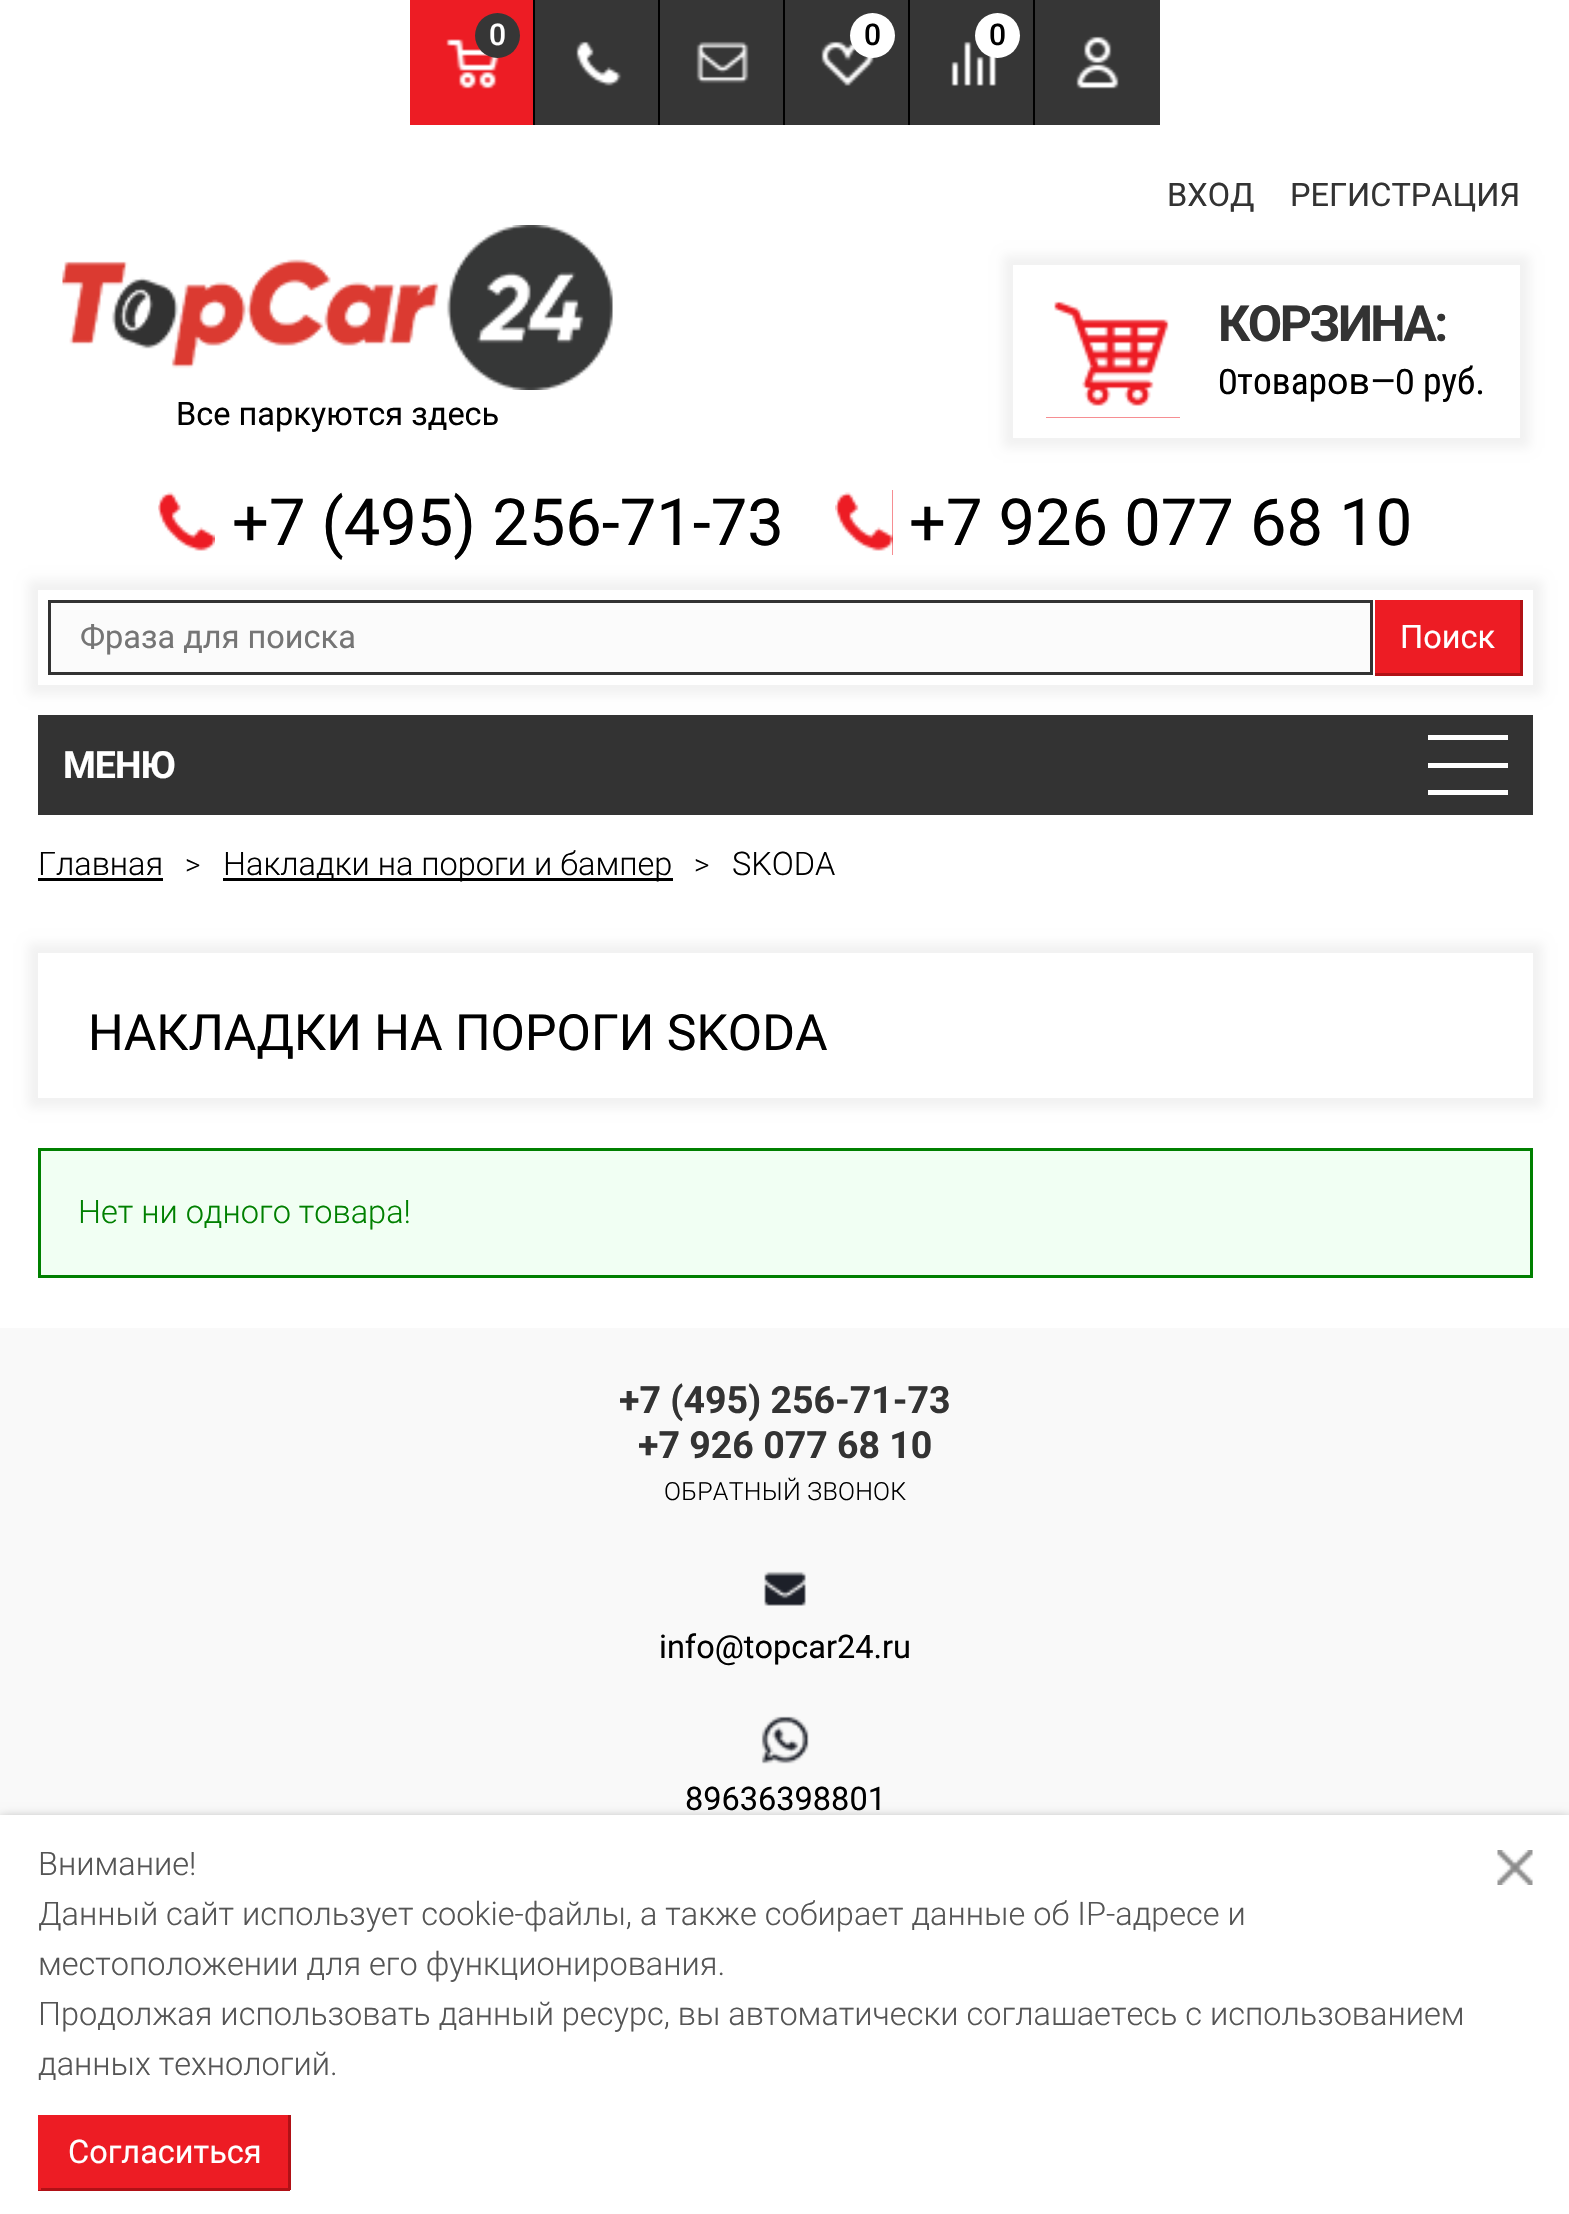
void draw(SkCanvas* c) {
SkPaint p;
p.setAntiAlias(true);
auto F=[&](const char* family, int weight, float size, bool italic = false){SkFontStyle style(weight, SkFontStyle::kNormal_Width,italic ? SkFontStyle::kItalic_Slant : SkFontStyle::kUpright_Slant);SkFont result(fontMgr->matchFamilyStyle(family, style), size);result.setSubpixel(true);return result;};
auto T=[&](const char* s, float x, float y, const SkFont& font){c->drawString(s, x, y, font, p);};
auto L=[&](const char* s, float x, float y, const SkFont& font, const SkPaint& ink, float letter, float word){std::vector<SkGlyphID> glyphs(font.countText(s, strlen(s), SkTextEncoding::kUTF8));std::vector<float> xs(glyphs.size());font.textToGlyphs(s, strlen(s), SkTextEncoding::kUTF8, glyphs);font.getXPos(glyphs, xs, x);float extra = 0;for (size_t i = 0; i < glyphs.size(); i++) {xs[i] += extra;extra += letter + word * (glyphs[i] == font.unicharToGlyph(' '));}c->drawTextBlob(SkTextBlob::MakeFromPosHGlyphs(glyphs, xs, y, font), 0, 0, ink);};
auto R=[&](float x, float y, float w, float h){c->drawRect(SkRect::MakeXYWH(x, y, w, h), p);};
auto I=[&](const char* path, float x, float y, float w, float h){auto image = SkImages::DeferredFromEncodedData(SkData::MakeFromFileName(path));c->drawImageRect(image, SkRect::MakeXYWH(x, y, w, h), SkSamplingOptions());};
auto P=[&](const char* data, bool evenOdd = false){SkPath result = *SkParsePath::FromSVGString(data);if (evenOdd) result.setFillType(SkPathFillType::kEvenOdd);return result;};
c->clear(0xffffffff);
p.setColor(0xff000000);
R(533,0,2,125);
p.setColor(0xffed1c24);
R(410,0,123,125);
I("1.png",446,39,53,50);
p.setColor(0xff363636);
c->drawCircle(497.5,35.5,22.5,p);
auto f1 = F("Roboto",500,30);
p.setColor(0xffffffff);
T("0",489,45,f1);
p.setColor(0xff000000);
R(658,0,2,125);
p.setColor(0xff363636);
R(535,0,123,125);
I("2.png",576,41,46,45);
p.setColor(0xff000000);
R(783,0,2,125);
p.setColor(0xff363636);
R(660,0,123,125);
I("3.png",696,41,53,43);
p.setColor(0xff000000);
R(908,0,2,125);
p.setColor(0xff363636);
R(785,0,123,125);
I("4.png",821,41,53,45);
p.setColor(0xffffffff);
c->drawCircle(872.5,35.5,22.5,p);
p.setColor(0xff000000);
T("0",864,45,f1);
R(1033,0,2,125);
p.setColor(0xff363636);
R(910,0,123,125);
I("5.png",951,41,46,45);
p.setColor(0xffffffff);
c->drawCircle(997.5,35.5,22.5,p);
p.setColor(0xff000000);
T("0",989,45,f1);
p.setColor(0xff363636);
R(1035,0,125,125);
I("6.png",1076,36,43,53);
auto f2 = F("Roboto",400,32.5);
p.setColor(0xff333333);
T("ВХОД",1167,206,f2);
T("РЕГИСТРАЦИЯ",1290,206,f2);
c->save();
c->clipPath(P("M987 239h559v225h-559zm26 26h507v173h-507z",true),true);
p.setColor(0x0d000000);
p.setMaskFilter(SkMaskFilter::MakeBlur(kNormal_SkBlurStyle, 5));
c->drawRect(SkRect::MakeXYWH(1003,255,527,193),p);
p.setMaskFilter(nullptr);
c->restore();
p.setColor(0xffed1c24);
R(1046,301,134,117);
I("7.png",1046,290,134,128);
auto f3 = F("Roboto",700,50);
p.setColor(0xff333333);
L("КОРЗИНА:",1218,341,f3,p,-2.5,0);
auto f4 = F("Roboto",400,35);
p.setColor(0xff000000);
L("0",1218,394,f4,p,-1,0);
auto f5 = F("Roboto Condensed",400,37.5);
T("товар",1237,394,f5);
auto f6 = F("Roboto",400,37.5);
T("oв",1327,394,f6);
T("—",1370,394,f5);
L("0",1395,394,f4,p,-1,0);
T("руб.",1423,394,f5);
I("8.png",62,225,551,165);
T("Все паркуются здесь",176,425,f2);
p.setColor(0xffed1c24);
R(158,491,57,60);
I("9.png",158,490,57,65);
auto f7 = F("Roboto",400,65);
p.setColor(0xff000000);
T("+7 (495) 256-71-73",232,545,f7);
p.setColor(0xffed1c24);
R(835,490,58,65);
I("10.png",835,490,58,65);
p.setColor(0xff000000);
T("+7 926 077 68 10",909,545,f7);
p.setColor(0xff333333);
R(38,715,1495,100);
p.setColor(0x0d000000);
p.setMaskFilter(SkMaskFilter::MakeBlur(kNormal_SkBlurStyle, 5));
c->drawRect(SkRect::MakeXYWH(28,580,1515,115),p);
p.setMaskFilter(nullptr);
p.setColor(0xffffffff);
R(38,590,1495,95);
p.setColor(0xfffbfbfb);
c->drawRect(SkRect::MakeXYWH(49.5,601.5,1322,72),p);
p.setStroke(true);
p.setStrokeWidth(3);
p.setColor(0xff333333);
c->drawRect(SkRect::MakeXYWH(49.5,601.5,1322,72),p);
p.setStroke(false);
p.setColor(0xff757575);
T("Фраза для поиска",80,648,f2);
p.setColor(0xffed1c24);
R(1375,600,145,73);
p.setColor(0xffb11116);
R(1520,600,3,75);
R(1375,673,148,3);
p.setColor(0xffffffff);
T("Поиск",1400,648,f2);
auto f8 = F("Roboto",700,37.5);
L("МЕНЮ",63,778,f8,p,-1,0);
R(1428,763,80,5);
R(1428,735,80,5);
R(1428,790,80,5);
auto f9 = F("Roboto",300,32.5);
p.setColor(0xff000000);
T("Главная",38,875,f9);
R(38,878,125,3);
auto f10 = F("Roboto",300,30);
T(">",185,875,f10);
R(223,878,450,3);
T("Накладки на пороги и бампер",223,875,f9);
T(">",694,875,f10);
T("SKODA",732,875,f9);
p.setColor(0x0d000000);
p.setMaskFilter(SkMaskFilter::MakeBlur(kNormal_SkBlurStyle, 5));
c->drawRect(SkRect::MakeXYWH(28,943,1515,165),p);
p.setMaskFilter(nullptr);
p.setColor(0xffffffff);
R(38,953,1495,145);
auto f11 = F("Roboto",400,50);
p.setColor(0xff000000);
T("НАКЛАДКИ НА ПОРОГИ SKODA",88,1050,f11);
p.setColor(0xfff1fff3);
c->drawRect(SkRect::MakeXYWH(39.5,1149.5,1492,127),p);
p.setStroke(true);
p.setColor(0xff008000);
c->drawRect(SkRect::MakeXYWH(39.5,1149.5,1492,127),p);
p.setStroke(false);
T("Нет ни одного товара!",78,1223,f9);
p.setColor(0xfff9f9f9);
R(0,1328,1569,487);
p.setColor(0xff333333);
T("+7 (495) 256-71-73",619,1413,f8);
T("+7 926 077 68 10",638,1458,f8);
auto f12 = F("Roboto",300,25);
p.setColor(0xff000000);
L("ОБРАТНЫЙ ЗВОНОК",664,1500,f12,p,.25,0);
I("11.png",764,1571,42,35);
T("info@topcar24.ru",659,1658,f2);
I("12.png",761,1716,48,48);
T("89636398801",685,1810,f2);
p.setColor(0x80000000);
p.setMaskFilter(SkMaskFilter::MakeBlur(kNormal_SkBlurStyle, 6));
c->drawRect(SkRect::MakeXYWH(0,1820,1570,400),p);
p.setMaskFilter(nullptr);
p.setColor(0xffffffff);
R(0,1815,1569,399);
p.setColor(0xff555555);
T("Внимание!",38,1875,f9);
T("Данный сайт использует cookie-файлы, а также собирает данные об IP-адресе и",38,1925,f9);
T("местоположении для его функционирования.",38,1975,f9);
T("Продолжая использовать данный ресурс, вы автоматически соглашаетесь с использованием",38,2025,f9);
T("данных технологий.",38,2075,f9);
I("13.png",1497,1850,36,35);
p.setColor(0xffed1c24);
R(41,2115,247,73);
p.setColor(0xffb11116);
R(288,2115,3,75);
R(38,2188,252,3);
p.setColor(0xffed1c24);
R(38,2115,3,75);
p.setColor(0xffffffff);
T("Согласиться",68,2163,f2);
}
